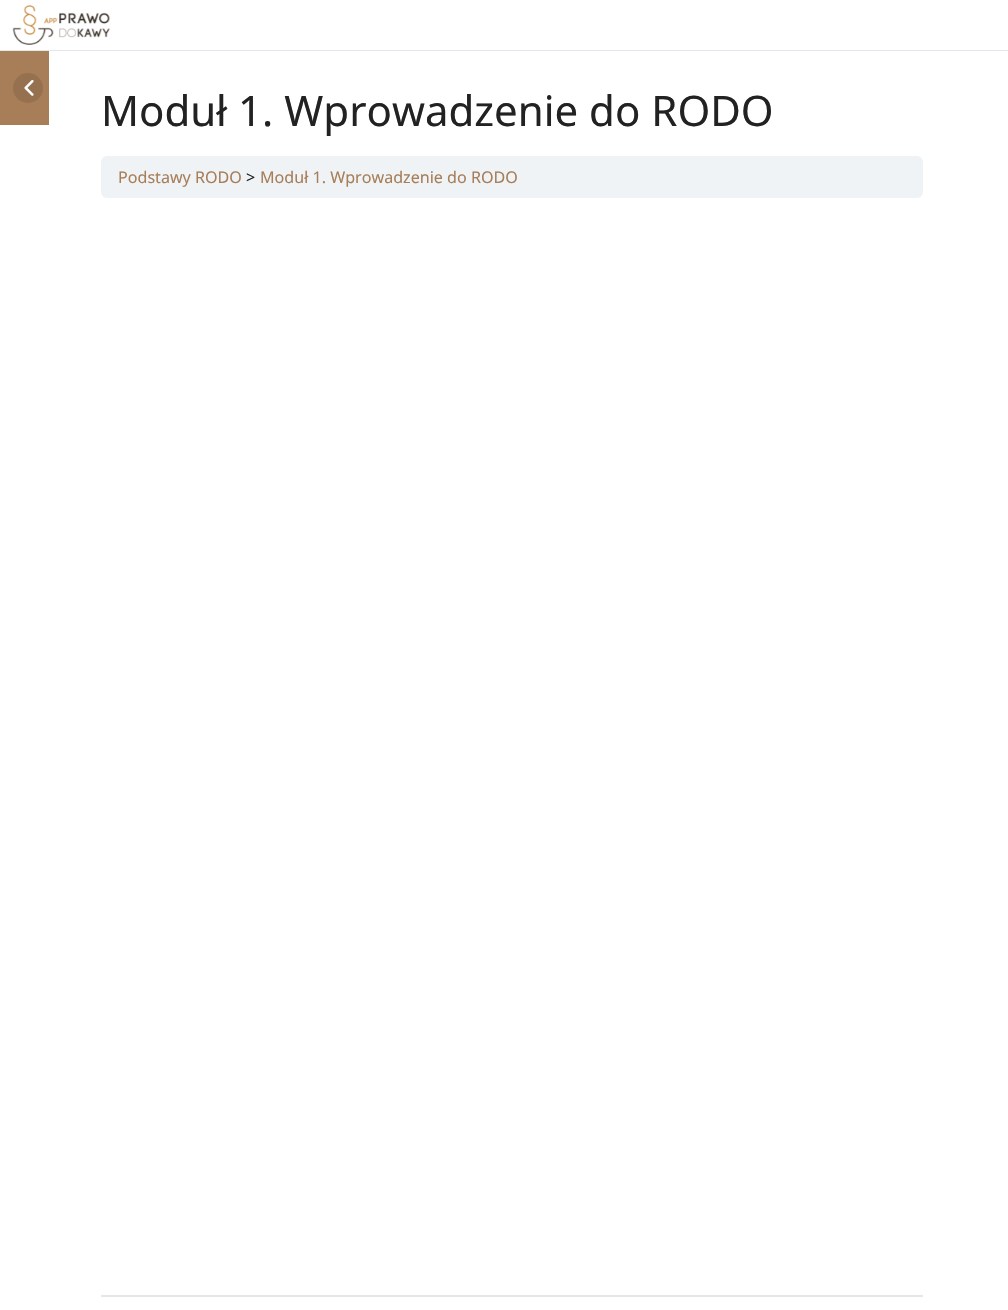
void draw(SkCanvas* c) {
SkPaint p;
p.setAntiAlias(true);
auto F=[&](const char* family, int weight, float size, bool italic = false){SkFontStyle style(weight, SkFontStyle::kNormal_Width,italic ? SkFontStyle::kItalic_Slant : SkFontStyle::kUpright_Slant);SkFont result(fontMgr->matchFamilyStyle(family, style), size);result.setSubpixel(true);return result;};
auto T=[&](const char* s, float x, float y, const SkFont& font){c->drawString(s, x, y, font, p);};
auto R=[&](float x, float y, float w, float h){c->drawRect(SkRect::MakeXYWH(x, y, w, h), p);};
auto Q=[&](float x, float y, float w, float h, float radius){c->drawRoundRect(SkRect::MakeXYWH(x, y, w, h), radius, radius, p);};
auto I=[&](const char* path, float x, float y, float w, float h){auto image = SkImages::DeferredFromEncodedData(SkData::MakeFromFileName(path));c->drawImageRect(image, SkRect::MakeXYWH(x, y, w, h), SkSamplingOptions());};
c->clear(0xffffffff);
p.setColor(0xffa77e58);
R(0,51,49,74);
p.setColor(0xff96714f);
c->drawCircle(28,88,15,p);
I("1.png",24,80,10,16);
p.setColor(0xffe2e7ed);
R(0,50,1008,1);
I("2.png",12,5,98,40);
auto f1 = F("Noto Sans",400,42);
p.setColor(0xff222222);
T("Moduł 1. Wprowadzenie do RODO",101,126,f1);
p.setColor(0xfff0f3f6);
Q(101,156,822,42,6);
auto f2 = F("Noto Sans",400,16.1);
p.setColor(0xffa77e58);
T("Podstawy RODO",118,183,f2);
p.setColor(0xff222222);
T(">",246,183,f2);
p.setColor(0xffa77e58);
T("Moduł 1. Wprowadzenie do RODO",260,183,f2);
p.setColor(0xffe6e6e6);
R(101,1295,822,2);
}
